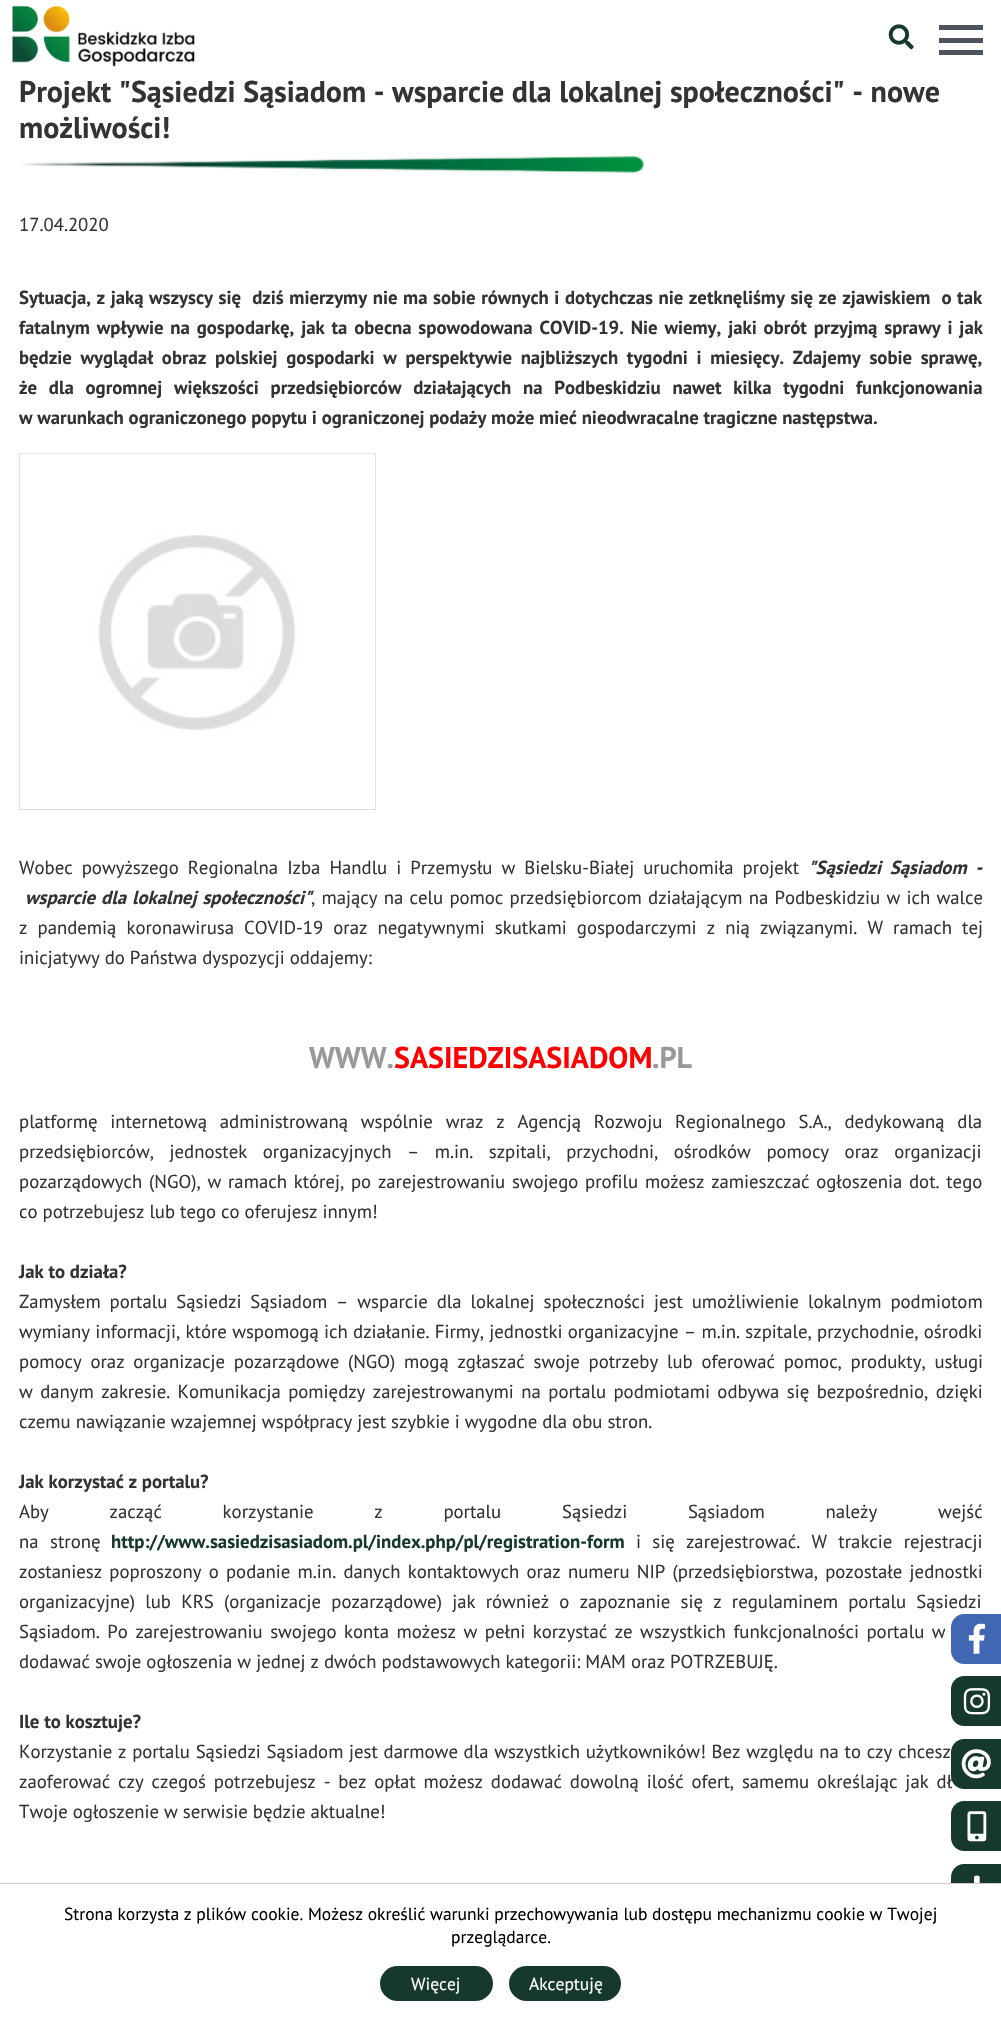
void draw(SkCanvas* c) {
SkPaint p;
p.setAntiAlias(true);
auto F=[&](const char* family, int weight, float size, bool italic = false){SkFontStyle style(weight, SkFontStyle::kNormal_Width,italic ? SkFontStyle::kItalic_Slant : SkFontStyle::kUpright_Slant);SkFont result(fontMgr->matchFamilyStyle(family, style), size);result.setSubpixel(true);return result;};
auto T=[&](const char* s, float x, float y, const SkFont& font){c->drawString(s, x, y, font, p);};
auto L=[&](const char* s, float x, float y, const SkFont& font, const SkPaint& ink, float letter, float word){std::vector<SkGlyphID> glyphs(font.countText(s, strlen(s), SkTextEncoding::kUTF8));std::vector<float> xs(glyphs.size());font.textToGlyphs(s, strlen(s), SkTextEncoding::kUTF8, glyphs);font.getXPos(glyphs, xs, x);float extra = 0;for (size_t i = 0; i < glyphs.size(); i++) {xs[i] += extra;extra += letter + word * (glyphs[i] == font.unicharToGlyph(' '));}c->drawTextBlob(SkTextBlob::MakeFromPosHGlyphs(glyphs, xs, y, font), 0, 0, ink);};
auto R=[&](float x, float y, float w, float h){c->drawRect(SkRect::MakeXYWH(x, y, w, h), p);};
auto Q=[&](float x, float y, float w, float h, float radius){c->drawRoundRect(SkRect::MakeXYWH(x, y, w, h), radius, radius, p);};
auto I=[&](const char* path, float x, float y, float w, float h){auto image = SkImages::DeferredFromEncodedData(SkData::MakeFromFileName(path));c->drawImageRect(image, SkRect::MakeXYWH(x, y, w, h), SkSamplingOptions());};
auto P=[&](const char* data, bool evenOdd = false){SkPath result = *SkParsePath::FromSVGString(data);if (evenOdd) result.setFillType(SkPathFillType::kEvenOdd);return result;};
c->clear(0xffffffff);
I("1.png",12,6,183,61);
I("2.png",888,24,26,26);
p.setColor(0xff4e5360);
R(939,25,44,5);
R(939,38,44,5);
R(939,50,44,5);
auto f1 = F("PT Sans",700,30);
p.setColor(0xff333333);
T("Projekt \"Sąsiedzi Sąsiadom - wsparcie dla lokalnej społeczności\" - nowe",19,102,f1);
T("możliwości!",19,138,f1);
I("3.png",21,156,623,17);
auto f2 = F("PT Sans",400,18.75);
T("17.04.2020",19,231,f2);
auto f3 = F("PT Sans",700,18.75);
L("Sytuacja, z jaką wszyscy się  dziś mierzymy nie ma sobie równych i dotychczas nie zetknęliśmy się ze zjawiskiem  o tak",19,304,f3,p,0,.8);
L("fatalnym wpływie na gospodarkę, jak ta obecna spowodowana COVID-19. Nie wiemy, jaki obrót przyjmą sprawy i jak",19,334,f3,p,0,2.1);
L("będzie wyglądał obraz polskiej gospodarki w perspektywie najbliższych tygodni i miesięcy. Zdajemy sobie sprawę,",19,364,f3,p,0,3.9);
L("że dla ogromnej większości przedsiębiorców działających na Podbeskidziu nawet kilka tygodni funkcjonowania",19,394,f3,p,0,7);
T("w warunkach ograniczonego popytu i ograniczonej podaży może mieć nieodwracalne tragiczne następstwa.",19,424,f3);
p.setStroke(true);
p.setStrokeWidth(1);
p.setColor(0xffdde0e6);
c->drawRect(SkRect::MakeXYWH(19.5,453.5,356,356),p);
I("4.png",20,453,356,355);
p.setStroke(false);
p.setColor(0xff333333);
L("Wobec powyższego Regionalna Izba Handlu i Przemysłu w Bielsku-Białej uruchomiła projekt",19,874,f2,p,0,4);
auto f4 = F("PT Sans",700,18.75,true);
L("\"Sąsiedzi Sąsiadom -",808,874,f4,p,0,4);
L("wsparcie dla lokalnej społeczności\"",25,904,f4,p,0,1.25);
L(", mający na celu pomoc przedsiębiorcom działającym na Podbeskidziu w ich walce",311,904,f2,p,0,1.25);
L("z pandemią koronawirusa COVID-19 oraz negatywnymi skutkami gospodarczymi z nią związanymi. W ramach tej",19,934,f2,p,0,5.1);
T("inicjatywy do Państwa dyspozycji oddajemy:",19,964,f2);
p.setColor(0xff999999);
T("WWW.",309,1068,f1);
p.setColor(0xffff0000);
T("SASIEDZISASIADOM",394,1068,f1);
p.setColor(0xff999999);
T(".PL",652,1068,f1);
p.setColor(0xff333333);
L("platformę internetową administrowaną wspólnie wraz z Agencją Rozwoju Regionalnego S.A., dedykowaną dla",19,1128,f2,p,0,7.75);
L("przedsiębiorców, jednostek organizacyjnych – m.in. szpitali, przychodni, ośrodków pomocy oraz organizacji",19,1158,f2,p,0,10.5);
L("pozarządowych (NGO), w ramach której, po zarejestrowaniu swojego profilu możesz zamieszczać ogłoszenia dot. tego",19,1188,f2,p,0,1.75);
T("co potrzebujesz lub tego co oferujesz innym!",19,1218,f2);
T("Jak to działa?",19,1278,f3);
L("Zamysłem portalu Sąsiedzi Sąsiadom – wsparcie dla lokalnej społeczności jest umożliwienie lokalnym podmiotom",19,1308,f2,p,0,3.9);
L("wymiany informacji, które wspomogą ich działanie. Firmy, jednostki organizacyjne – m.in. szpitale, przychodnie, ośrodki",19,1338,f2,p,0,.3);
L("pomocy oraz organizacje pozarządowe (NGO) mogą zgłaszać swoje potrzeby lub oferować pomoc, produkty, usługi",19,1368,f2,p,0,3.75);
L("w danym zakresie. Komunikacja pomiędzy zarejestrowanymi na portalu podmiotami odbywa się bezpośrednio, dzięki",19,1398,f2,p,0,2.4);
T("czemu nawiązanie wzajemnej współpracy jest szybkie i wygodne dla obu stron.",19,1428,f2);
T("Jak korzystać z portalu?",19,1488,f3);
L("Aby zacząć korzystanie z portalu Sąsiedzi Sąsiadom należy wejść",19,1518,f2,p,0,55.75);
T("na",19,1548,f2);
T("stronę",50,1548,f2);
p.setColor(0xff17392d);
T("http://www.sasiedzisasiadom.pl/index.php/pl/registration-form",111,1548,f3);
p.setColor(0xff333333);
L("i się zarejestrować. W trakcie rejestracji",636,1548,f2,p,0,6.25);
L("zostaniesz poproszony o podanie m.in. danych kontaktowych oraz numeru NIP (przedsiębiorstwa, pozostałe jednostki",19,1578,f2,p,0,2.25);
L("organizacyjne) lub KRS (organizacje pozarządowe) jak również o zapoznanie się z regulaminem portalu Sąsiedzi",19,1608,f2,p,0,5.25);
L("Sąsiadom. Po zarejestrowaniu swojego konta możesz w pełni korzystać ze wszystkich funkcjonalności portalu w",19,1638,f2,p,0,2.5);
T("dodawać swoje ogłoszenia w jednej z dwóch podstawowych kategorii: MAM oraz POTRZEBUJĘ.",19,1668,f2);
T("Ile to kosztuje?",19,1728,f3);
L("Korzystanie z portalu Sąsiedzi Sąsiadom jest darmowe dla wszystkich użytkowników! Bez względu na to czy chcesz",19,1758,f2,p,0,.7);
L("zaoferować czy czegoś potrzebujesz - bez opłat możesz dodawać dowolną ilość ofert, samemu określając jak dł",19,1788,f2,p,0,2.9);
T("Twoje ogłoszenie w serwisie będzie aktualne!",19,1818,f2);
p.setColor(0xff4267b2);
c->drawPath(P("M964 1614h37v50h-37c-7 0-13-6-13-13v-24c0-7 6-13 13-13z"),p);
I("5.png",968,1623,17,31);
p.setColor(0xff17392d);
c->drawPath(P("M964 1676h37v50h-37c-7 0-13-6-13-13v-24c0-7 6-13 13-13z"),p);
I("6.png",963,1688,28,27);
c->drawPath(P("M964 1739h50v50h-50c-7 0-13-6-13-13v-24c0-7 6-13 13-13z"),p);
I("7.png",961,1749,30,30);
c->drawPath(P("M964 1801h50v50h-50c-7 0-13-6-13-13v-24c0-7 6-13 13-13z"),p);
I("8.png",967,1811,20,31);
c->drawPath(P("M964 1864h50v50h-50c-7 0-13-6-13-13v-24c0-7 6-13 13-13z"),p);
I("9.png",974,1875,6,8);
p.setColor(0xffffffff);
R(951,1884,50,30);
p.setColor(0xffcccccc);
R(0,1883,1001,1);
auto f5 = F("PT Sans",400,17.5);
p.setColor(0xff000000);
T("Strona korzysta z plików cookie. Możesz określić warunki przechowywania lub dostępu mechanizmu cookie w Twojej",64,1920,f5);
T("przeglądarce.",451,1943,f5);
p.setColor(0xff17392d);
Q(380,1966,113,35,17.5);
p.setColor(0xffffffff);
T("Więcej",411,1990,f5);
p.setColor(0xff17392d);
Q(509,1966,112,35,17.5);
p.setColor(0xffffffff);
T("Akceptuję",529,1990,f5);
}
